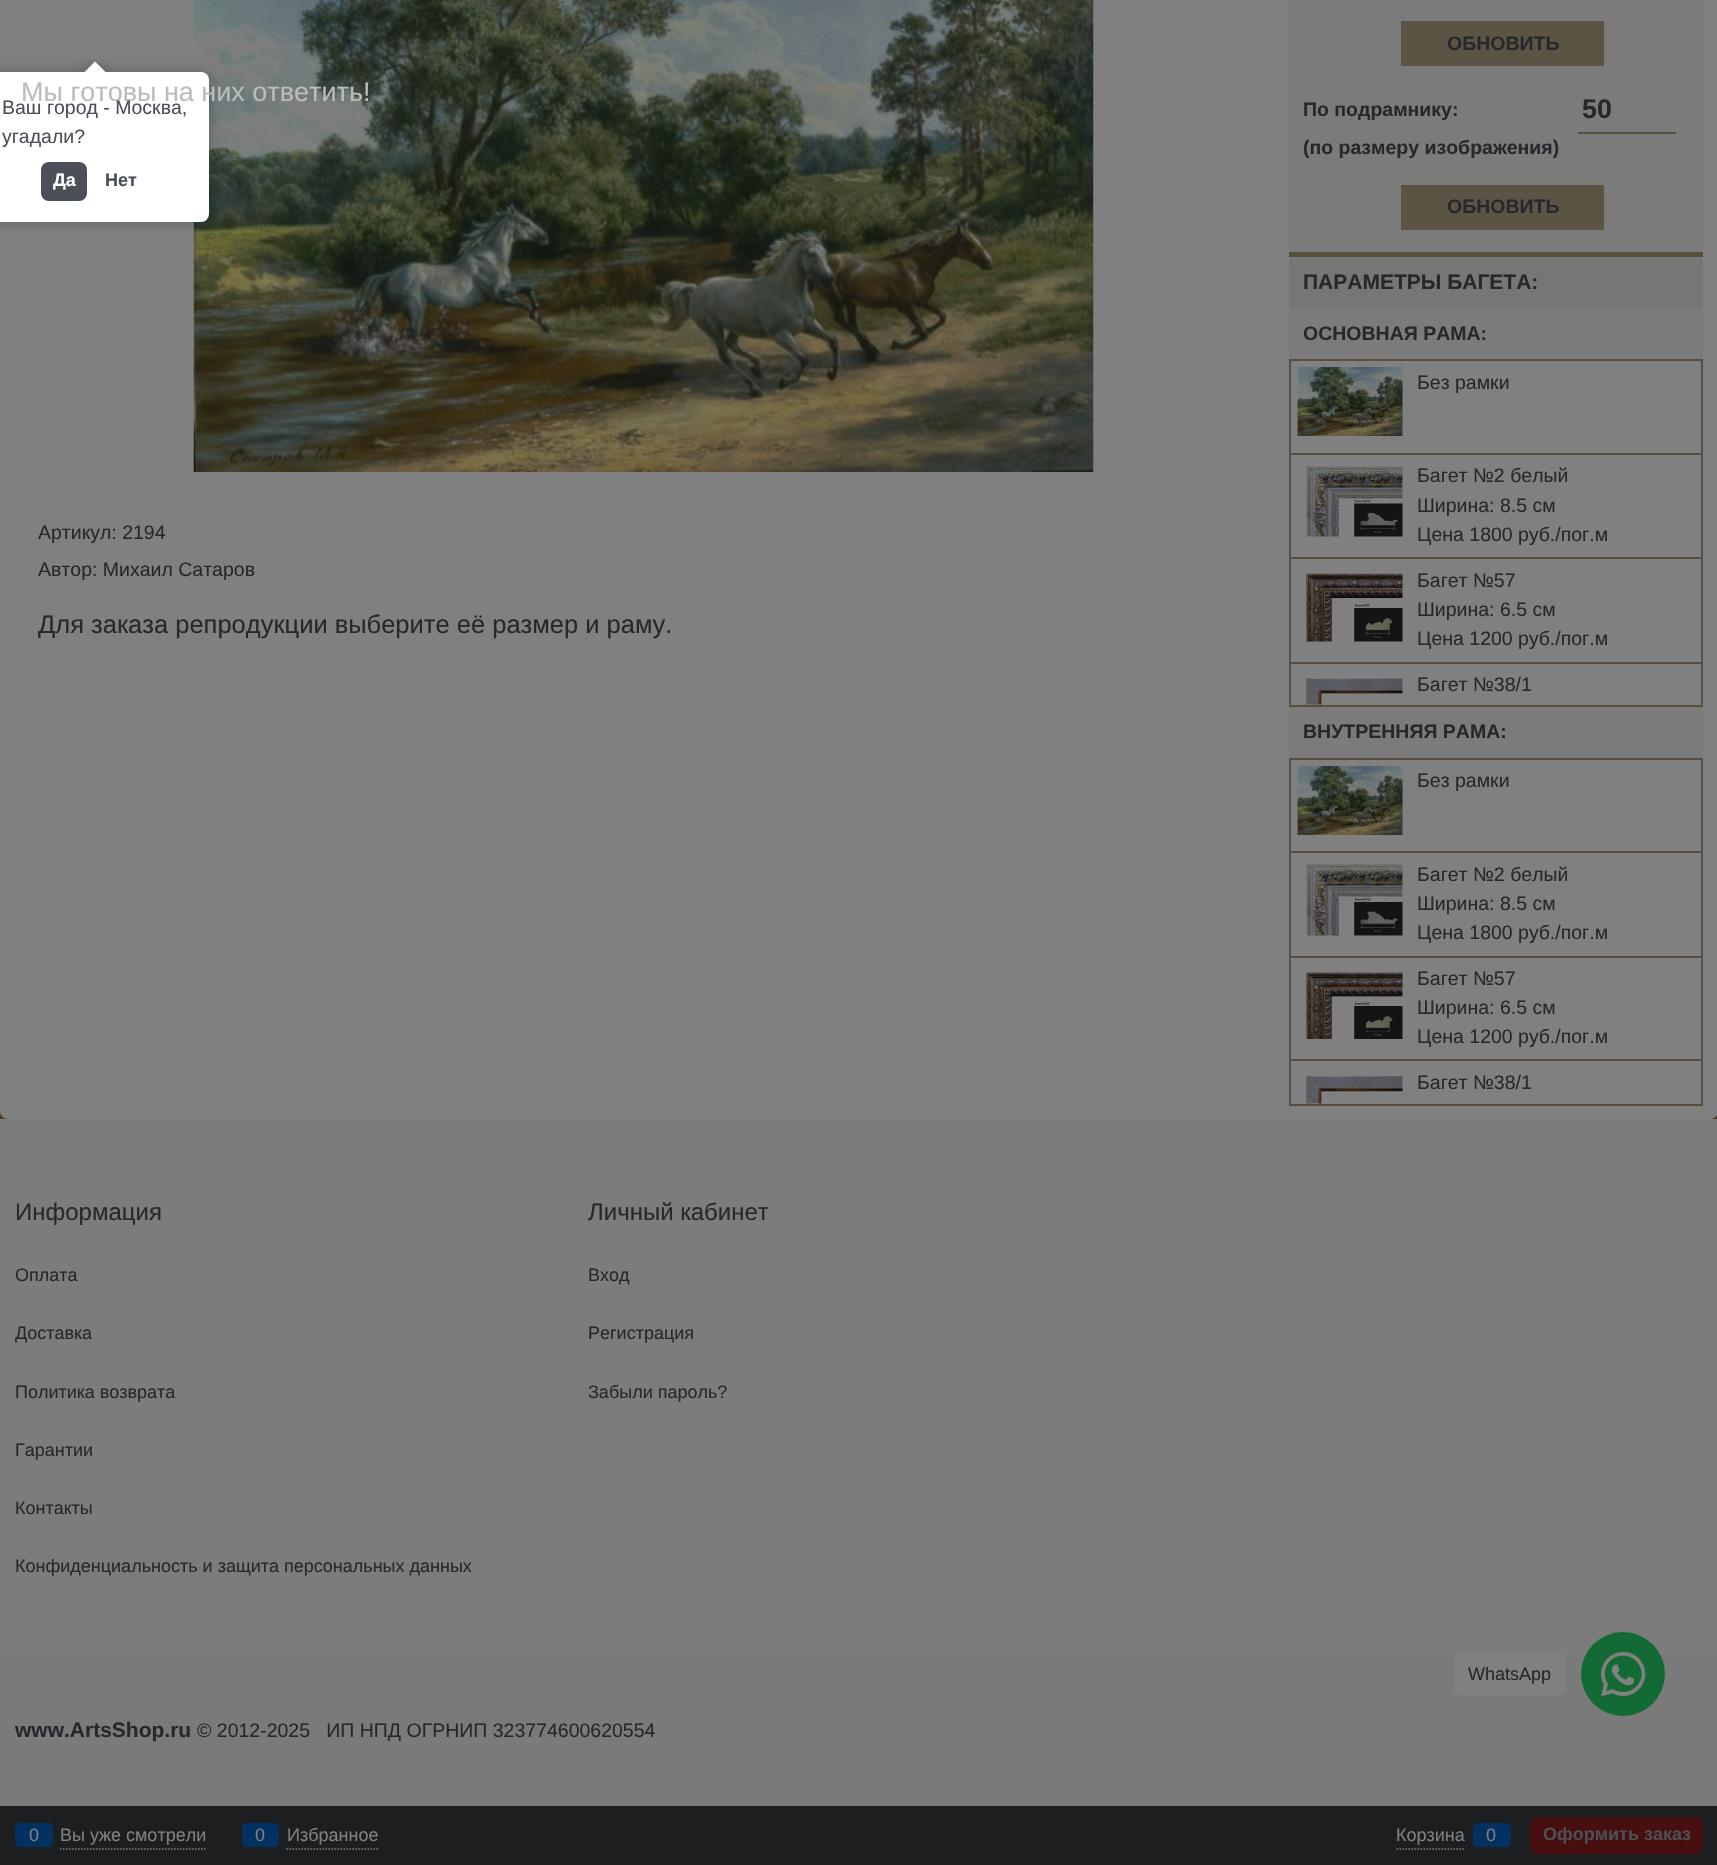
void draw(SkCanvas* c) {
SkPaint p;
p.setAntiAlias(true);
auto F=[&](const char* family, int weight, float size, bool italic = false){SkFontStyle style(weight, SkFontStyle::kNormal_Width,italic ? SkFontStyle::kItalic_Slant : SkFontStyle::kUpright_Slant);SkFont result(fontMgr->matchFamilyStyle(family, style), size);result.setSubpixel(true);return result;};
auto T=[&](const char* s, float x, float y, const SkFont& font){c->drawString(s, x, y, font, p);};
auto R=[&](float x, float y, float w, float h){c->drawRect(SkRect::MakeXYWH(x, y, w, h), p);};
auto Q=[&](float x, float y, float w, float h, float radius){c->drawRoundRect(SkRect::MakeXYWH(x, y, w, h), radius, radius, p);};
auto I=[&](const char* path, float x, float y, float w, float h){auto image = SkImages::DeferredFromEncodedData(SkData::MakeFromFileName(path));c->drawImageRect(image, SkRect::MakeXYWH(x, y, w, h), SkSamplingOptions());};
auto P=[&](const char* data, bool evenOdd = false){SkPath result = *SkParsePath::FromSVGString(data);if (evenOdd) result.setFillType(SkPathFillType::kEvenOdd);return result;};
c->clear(0xffffffff);
I("9.png",0,1111,1717,8);
p.setColor(0xff808080);
Q(0,-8,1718,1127,8);
I("1.png",193,0,901,472);
auto f1 = F("Liberation Sans",400,19.5);
p.setColor(0xff26282c);
T("Артикул: 2194",38,539,f1);
T("Автор: Михаил Сатаров",38,576,f1);
auto f2 = F("Liberation Sans",400,25.5);
T("Для заказа репродукции выберите её размер и раму.",38,633,f2);
p.setColor(0xff7b7b7b);
R(1289,0,414,252);
p.setColor(0xff5b5444);
R(1401,21,203,45);
auto f3 = F("Liberation Sans",700,19.5);
p.setColor(0xff26282c);
T("ОБНОВИТЬ",1447,50,f3);
T("По подрамнику:",1303,116,f3);
p.setColor(0xff58503e);
R(1578,132,98,2);
auto f4 = F("Liberation Sans",700,27);
p.setColor(0xff26282c);
T("50",1582,118,f4);
T("(по размеру изображения)",1303,154,f3);
p.setColor(0xff5b5444);
R(1401,185,203,45);
p.setColor(0xff26282c);
T("ОБНОВИТЬ",1447,213,f3);
p.setColor(0xff777675);
R(1289,257,414,52);
p.setColor(0xff58503e);
R(1289,252,414,5);
auto f5 = F("Liberation Sans",700,21);
p.setColor(0xff26282c);
T("ПАРАМЕТРЫ БАГЕТА:",1303,289,f5);
p.setColor(0xff7b7b7b);
R(1289,309,414,50);
p.setColor(0xff26282c);
T("ОСНОВНАЯ РАМА:",1303,340,f3);
p.setStroke(true);
p.setStrokeWidth(2);
p.setColor(0xff58503e);
c->drawRect(SkRect::MakeXYWH(1290,360,412,346),p);
p.setStroke(false);
R(1290,453,411,2);
I("2.png",1297,367,106,69);
p.setColor(0xff26282c);
T("Без рамки",1417,389,f1);
p.setColor(0xff58503e);
R(1290,557,411,2);
I("3.png",1306,466,97,71);
p.setColor(0xff26282c);
T("Багет №2 белый",1417,482,f1);
T("Ширина: 8.5 см",1417,512,f1);
T("Цена 1800 руб./пог.м",1417,541,f1);
p.setColor(0xff58503e);
R(1290,662,411,2);
I("4.png",1306,573,97,69);
p.setColor(0xff26282c);
T("Багет №57",1417,587,f1);
T("Ширина: 6.5 см",1417,616,f1);
T("Цена 1200 руб./пог.м",1417,645,f1);
I("5.png",1306,678,97,27);
T("Багет №38/1",1417,691,f1);
p.setColor(0xff7b7b7b);
R(1289,707,414,51);
p.setColor(0xff26282c);
T("ВНУТРЕННЯЯ РАМА:",1303,738,f3);
p.setStroke(true);
p.setColor(0xff58503e);
c->drawRect(SkRect::MakeXYWH(1290,759,412,346),p);
p.setStroke(false);
R(1290,851,411,2);
I("2.png",1297,766,106,69);
p.setColor(0xff26282c);
T("Без рамки",1417,787,f1);
p.setColor(0xff58503e);
R(1290,956,411,2);
I("6.png",1306,864,97,72);
p.setColor(0xff26282c);
T("Багет №2 белый",1417,881,f1);
T("Ширина: 8.5 см",1417,910,f1);
T("Цена 1800 руб./пог.м",1417,939,f1);
p.setColor(0xff58503e);
R(1290,1059,411,2);
I("7.png",1306,972,97,67);
p.setColor(0xff26282c);
T("Багет №57",1417,985,f1);
T("Ширина: 6.5 см",1417,1014,f1);
T("Цена 1200 руб./пог.м",1417,1043,f1);
I("8.png",1306,1076,97,28);
T("Багет №38/1",1417,1089,f1);
p.setColor(0xff7c7c7c);
R(0,1119,1717,536);
auto f6 = F("Liberation Sans",400,24);
p.setColor(0xff26282c);
T("Информация",15,1220,f6);
auto f7 = F("Liberation Sans",400,18);
T("Оплата",15,1281,f7);
T("Доставка",15,1339,f7);
T("Политика возврата",15,1398,f7);
T("Гарантии",15,1456,f7);
T("Контакты",15,1514,f7);
T("Конфиденциальность и защита персональных данных",15,1572,f7);
T("Личный кабинет",588,1220,f6);
T("Вход",588,1281,f7);
T("Регистрация",588,1339,f7);
T("Забыли пароль?",588,1398,f7);
p.setColor(0xff7a7a7a);
R(0,1655,1717,151);
p.setColor(0xff26282c);
T("www.ArtsShop.ru",15,1737,f5);
T("© 2012-2025   ИП НПД ОГРНИП 323774600620554",197,1737,f1);
p.setColor(0xff1c1e20);
R(0,1806,1717,59);
p.setStroke(true);
p.setStrokeWidth(1.5);
p.setColor(0xff808080);
p.setPathEffect(SkDashPathEffect::Make({{1.5f,1.5f}}, 0));
c->drawPath(P("M60 1849h145.5"),p);
p.setPathEffect(nullptr);
p.setStroke(false);
p.setColor(0xff033161);
Q(15,1823,38,24,5);
p.setColor(0xff808080);
T("0",29,1841,f7);
T("Вы уже смотрели",60,1841,f7);
p.setStroke(true);
p.setPathEffect(SkDashPathEffect::Make({{1.5f,1.5f}}, 0));
c->drawPath(P("M286.5 1849h91.5"),p);
p.setPathEffect(nullptr);
p.setStroke(false);
p.setColor(0xff033161);
Q(242,1823,37,24,5);
p.setColor(0xff808080);
T("0",255,1841,f7);
T("Избранное",287,1841,f7);
p.setStroke(true);
p.setPathEffect(SkDashPathEffect::Make({{1.5f,1.5f}}, 0));
c->drawPath(P("M1396.5 1849h69"),p);
p.setPathEffect(nullptr);
p.setStroke(false);
T("Корзина",1396,1841,f7);
p.setColor(0xff033161);
Q(1473,1823,38,24,5);
p.setColor(0xff808080);
T("0",1486,1841,f7);
p.setColor(0xff470f10);
Q(1530,1817,173,37,8);
auto f8 = F("Liberation Sans",700,18);
p.setColor(0xff4e4f50);
T("Оформить заказ",1543,1840,f8);
p.setColor(0x40000000);
p.setMaskFilter(SkMaskFilter::MakeBlur(kNormal_SkBlurStyle, 7));
c->drawRoundRect(SkRect::MakeXYWH(-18,72,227,150),8,8,p);
p.setMaskFilter(nullptr);
p.setColor(0xffffffff);
Q(-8,72,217,150,8);
c->save();
c->clipRect(SkRect::MakeXYWH(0,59,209,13));
p.setColor(0x40000000);
p.setMaskFilter(SkMaskFilter::MakeBlur(kNormal_SkBlurStyle, 7));
c->drawRect(SkRect::MakeXYWH(87,65,15,15),p);
p.setMaskFilter(nullptr);
c->restore();
auto f9 = F("Liberation Sans",400,27);
p.setColor(0xffb9bdbc);
T("Мы готовы на них ответить!",21,101,f9);
c->save();
c->clipRect(SkRect::MakeXYWH(0,59,209,13));
p.setColor(0xffffffff);
c->drawPath(P("M95 61.5l10.5 10.5l-10.5 10.5l-10.5-10.5z"),p);
c->restore();
p.setColor(0xff4b4f58);
T("Ваш город - Москва,",2,114,f1);
T("угадали?",2,143,f1);
Q(41,162,46,39,8);
p.setColor(0xffffffff);
T("Да",53,186,f8);
p.setColor(0xff4b4f58);
T("Нет",105,186,f8);
p.setColor(0xff808080);
Q(1454,1653,112,42,5);
p.setColor(0xff26282c);
T("WhatsApp",1468,1680,f7);
p.setColor(0xff136a34);
c->drawCircle(1623,1674,42,p);
I("10.png",1601,1652,45,45);
}
